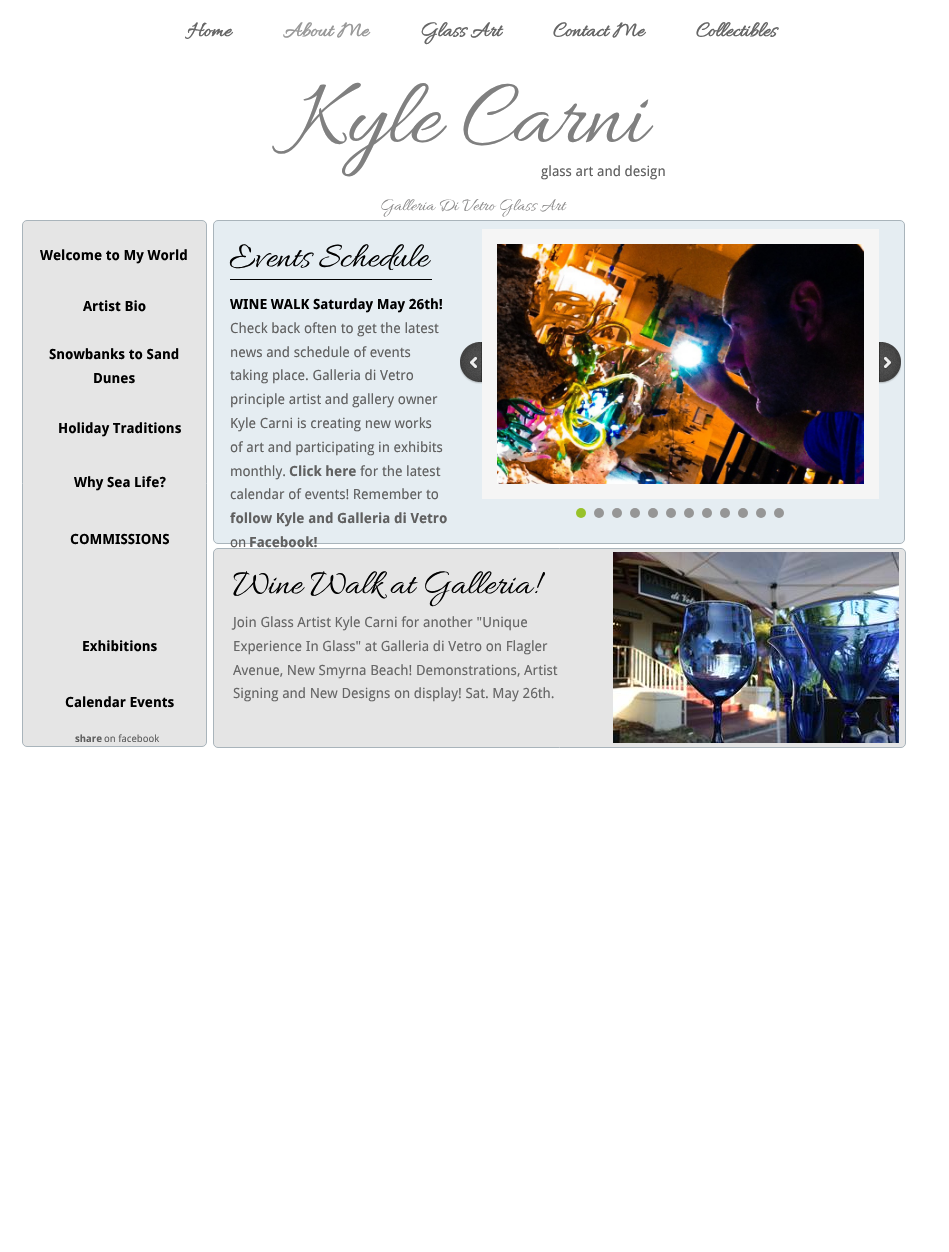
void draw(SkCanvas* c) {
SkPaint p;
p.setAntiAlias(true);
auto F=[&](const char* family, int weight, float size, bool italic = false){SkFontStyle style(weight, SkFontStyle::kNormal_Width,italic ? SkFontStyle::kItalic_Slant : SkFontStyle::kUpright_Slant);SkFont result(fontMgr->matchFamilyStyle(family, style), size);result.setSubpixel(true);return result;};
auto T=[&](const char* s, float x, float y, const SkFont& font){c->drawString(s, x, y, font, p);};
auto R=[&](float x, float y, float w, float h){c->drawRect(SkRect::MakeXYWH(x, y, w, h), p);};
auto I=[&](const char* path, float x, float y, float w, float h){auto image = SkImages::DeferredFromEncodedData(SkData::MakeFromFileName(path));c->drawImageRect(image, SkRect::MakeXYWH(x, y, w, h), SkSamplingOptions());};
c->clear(0xffffffff);
auto f1 = F("Allura",700,22);
p.setColor(0xff666666);
T("Home",187,36,f1);
p.setColor(0xff999999);
T("About Me",283,36,f1);
p.setColor(0xff666666);
T("Glass Art",420,36,f1);
T("Contact Me",553,36,f1);
T("Collectibles",696,36,f1);
auto f2 = F("Allura",400,96);
p.setColor(0xff808080);
T("Kyle Carni",294,141,f2);
auto f3 = F("Droid Sans",400,14);
p.setColor(0xff606060);
T("glass art and design",541,176,f3);
auto f4 = F("Allura",400,18);
p.setColor(0xff898888);
T("Galleria Di Vetro Glass Art",380,210,f4);
p.setColor(0xffe5e5e5);
c->drawRoundRect(SkRect::MakeXYWH(22.5,220.5,184,526),4.5,4.5,p);
p.setStroke(true);
p.setStrokeWidth(1);
p.setColor(0xffa9b4bb);
c->drawRoundRect(SkRect::MakeXYWH(22.5,220.5,184,526),4.5,4.5,p);
p.setStroke(false);
p.setColor(0xffe5edf2);
c->drawRoundRect(SkRect::MakeXYWH(213.5,220.5,691,323),4.5,4.5,p);
p.setStroke(true);
p.setColor(0xffa9b4bb);
c->drawRoundRect(SkRect::MakeXYWH(213.5,220.5,691,323),4.5,4.5,p);
auto f5 = F("Droid Sans",700,14);
p.setStroke(false);
p.setColor(0xff000000);
T("Welcome to My World",40,260,f5);
auto f6 = F("Allura",400,36);
T("Events Schedule",229,266,f6);
I("1.png",460,342,22,42);
p.setStroke(true);
p.setStrokeWidth(15);
p.setColor(0xfff5f5f5);
c->drawRect(SkRect::MakeXYWH(489.5,236.5,382,255),p);
I("2.png",497,244,367,240);
I("3.png",879,342,22,42);
p.setStroke(false);
p.setColor(0xff98c22a);
c->drawCircle(581,513,5,p);
p.setColor(0xff969696);
c->drawCircle(599,513,5,p);
c->drawCircle(617,513,5,p);
c->drawCircle(635,513,5,p);
c->drawCircle(653,513,5,p);
c->drawCircle(671,513,5,p);
c->drawCircle(689,513,5,p);
c->drawCircle(707,513,5,p);
c->drawCircle(725,513,5,p);
c->drawCircle(743,513,5,p);
c->drawCircle(761,513,5,p);
c->drawCircle(779,513,5,p);
p.setColor(0xff000000);
R(230,279,202,1);
T("Artist Bio",83,311,f5);
T("WINE WALK Saturday May 26th!",230,309,f5);
p.setColor(0xff606060);
T("Check back often to get the latest",230,333,f3);
T("news and schedule of events",230,357,f3);
T("taking place. Galleria di Vetro",230,380,f3);
T("principle artist and gallery owner",230,404,f3);
T("Kyle Carni is creating new works",230,428,f3);
T("of art and participating in exhibits",230,452,f3);
T("monthly.",230,476,f3);
T("Click here",289,476,f5);
T("for the latest",360,476,f3);
T("calendar of events! Remember to",230,499,f3);
T("follow Kyle and Galleria di Vetro",230,523,f5);
T("on",230,547,f3);
T("Facebook!",249,547,f5);
p.setColor(0xff000000);
T("Snowbanks to Sand",49,359,f5);
T("Dunes",93,383,f5);
T("Holiday Traditions",58,433,f5);
T("Why Sea Life?",74,487,f5);
T("COMMISSIONS",70,544,f5);
p.setColor(0xffe5e5e5);
c->drawRoundRect(SkRect::MakeXYWH(213.5,548.5,692,199),4.5,4.5,p);
p.setStroke(true);
p.setStrokeWidth(1);
p.setColor(0xffa9b4bb);
c->drawRoundRect(SkRect::MakeXYWH(213.5,548.5,692,199),4.5,4.5,p);
p.setStroke(false);
p.setColor(0xff000000);
T("Wine Walk at Galleria!",233,593,f6);
I("4.png",613,552,286,191);
T("Exhibitions",82,651,f5);
p.setColor(0xff666666);
T("Join Glass Artist Kyle Carni for another \"Unique",233,627,f3);
T("Experience In Glass\" at Galleria di Vetro on Flagler",233,651,f3);
T("Avenue, New Smyrna Beach! Demonstrations, Artist",233,675,f3);
T("Signing and New Designs on display! Sat. May 26th.",233,698,f3);
p.setColor(0xff000000);
T("Calendar Events",65,707,f5);
auto f7 = F("Droid Sans",700,10);
p.setColor(0xff606060);
T("share",75,742,f7);
auto f8 = F("Droid Sans",400,10);
T("on facebook",104,742,f8);
}
